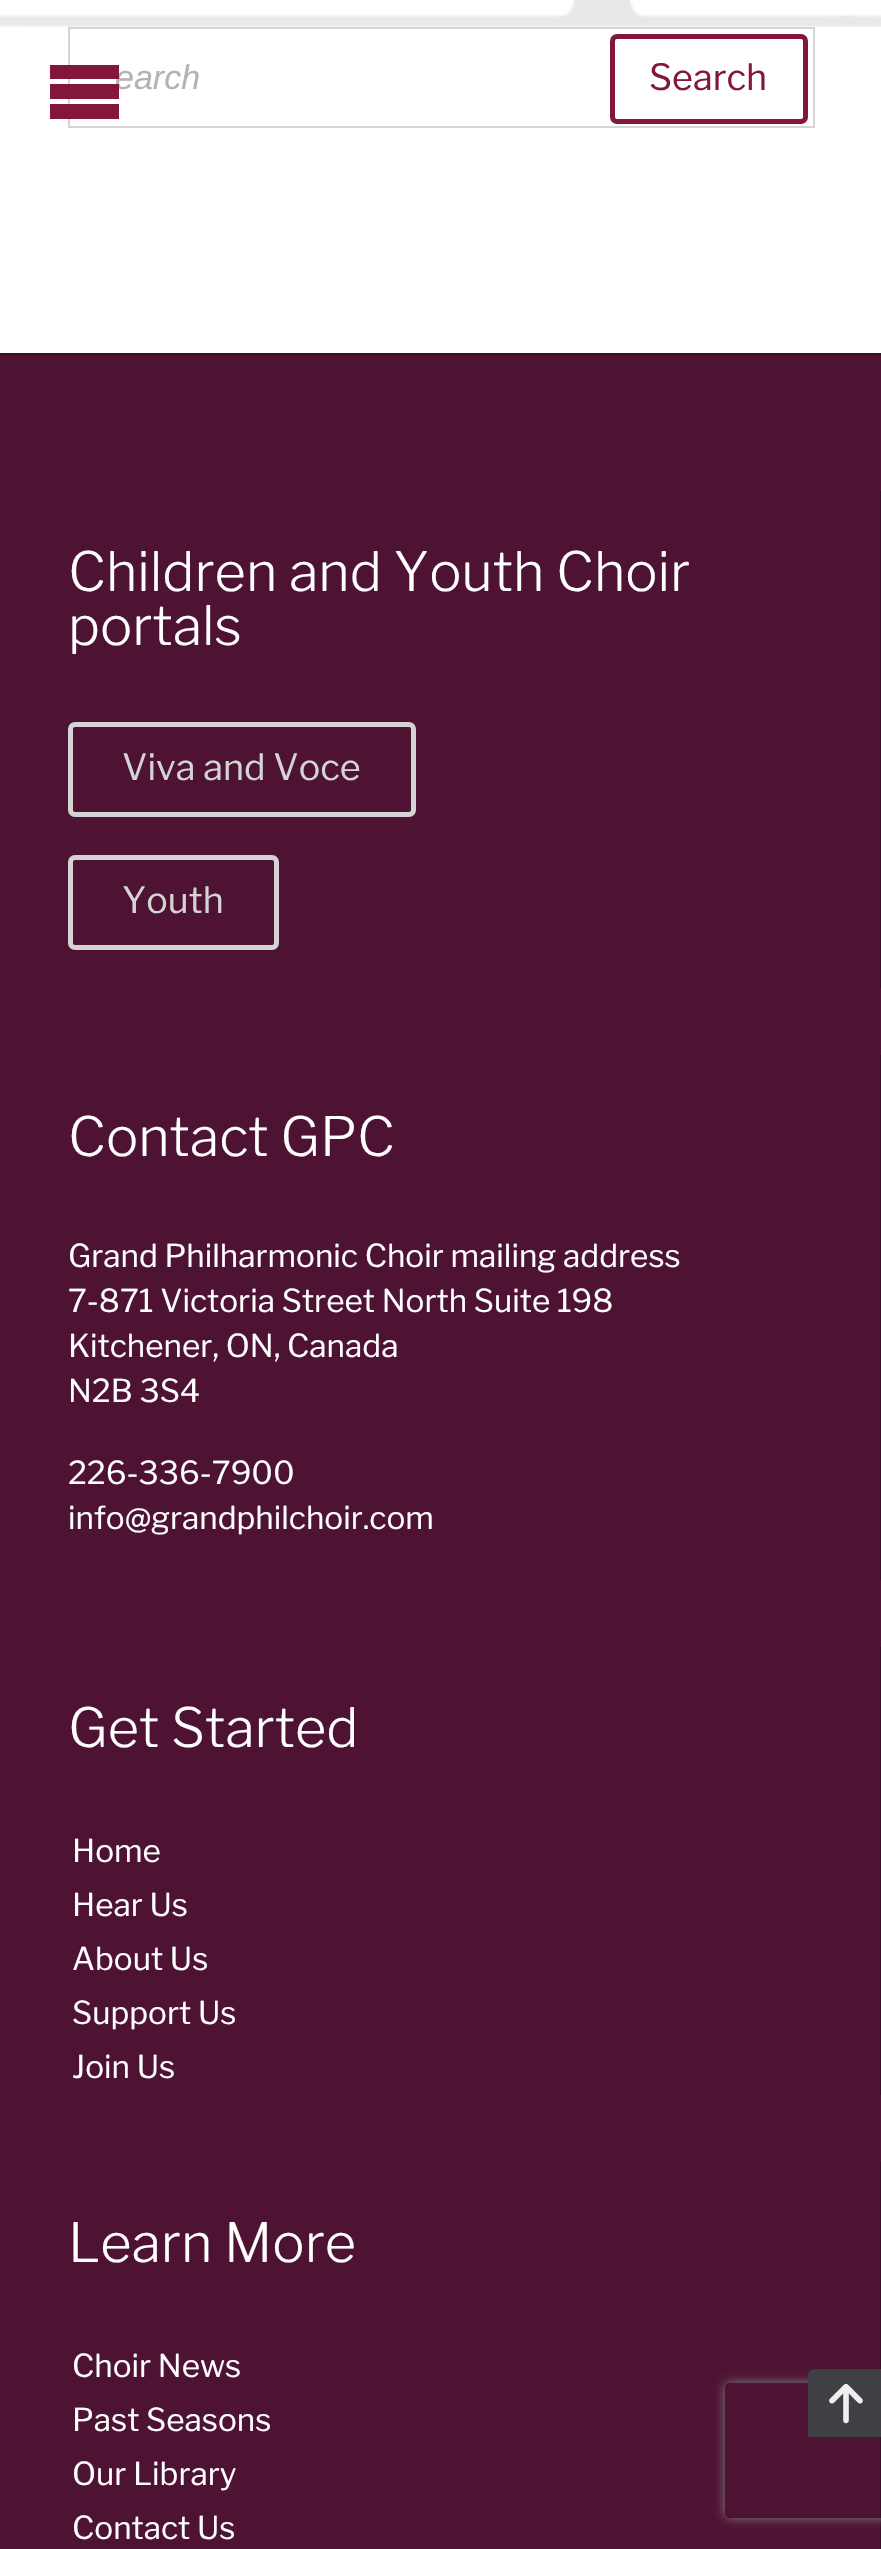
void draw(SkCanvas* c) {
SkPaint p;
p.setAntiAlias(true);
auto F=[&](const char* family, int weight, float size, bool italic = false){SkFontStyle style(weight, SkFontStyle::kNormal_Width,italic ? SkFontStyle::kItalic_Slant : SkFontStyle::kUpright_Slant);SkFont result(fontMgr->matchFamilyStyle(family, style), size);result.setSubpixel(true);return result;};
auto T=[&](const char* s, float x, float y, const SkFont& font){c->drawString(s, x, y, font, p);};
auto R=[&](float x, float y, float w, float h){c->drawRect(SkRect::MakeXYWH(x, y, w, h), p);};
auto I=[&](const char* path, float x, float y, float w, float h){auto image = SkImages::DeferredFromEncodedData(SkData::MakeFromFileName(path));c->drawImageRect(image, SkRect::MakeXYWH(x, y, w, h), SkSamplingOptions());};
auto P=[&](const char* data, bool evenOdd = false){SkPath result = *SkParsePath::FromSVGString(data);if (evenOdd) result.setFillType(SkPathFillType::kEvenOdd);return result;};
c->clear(0xffffffff);
I("1.png",0,0,881,27);
p.setStroke(true);
p.setStrokeWidth(2);
p.setColor(0xffd4d4d4);
c->drawRect(SkRect::MakeXYWH(69,28,745,99),p);
auto f1 = F("Liberation Sans",400,34,true);
p.setStroke(false);
p.setColor(0xffb3b3b3);
T("earch",115,89,f1);
p.setStroke(true);
p.setStrokeWidth(5);
p.setColor(0xff84163c);
c->drawRoundRect(SkRect::MakeXYWH(612.5,36.5,193,85),4.5,4.5,p);
auto f2 = F("Libre Franklin",400,36);
p.setStroke(false);
T("Search",649,90,f2);
p.setColor(0xff4e1333);
R(0,355,881,2194);
p.setColor(0xff390e26);
R(0,353,881,2);
R(880,491,1,497);
auto f3 = F("Libre Franklin",300,54);
p.setColor(0xffffffff);
T("Children and Youth Choir",68,591,f3);
T("portals",68,645,f3);
p.setStroke(true);
p.setColor(0xffd4d4d4);
c->drawRoundRect(SkRect::MakeXYWH(70.5,724.5,343,90),4.5,4.5,p);
p.setStroke(false);
T("Viva and Voce",122,780,f2);
p.setStroke(true);
c->drawRoundRect(SkRect::MakeXYWH(70.5,857.5,206,90),4.5,4.5,p);
p.setStroke(false);
T("Youth",122,913,f2);
p.setColor(0xff390e26);
R(880,1055,1,525);
p.setColor(0xffffffff);
T("Contact GPC",68,1156,f3);
auto f4 = F("Libre Franklin",400,31.5);
T("Grand Philharmonic Choir mailing address",68,1267,f4);
T("7-871 Victoria Street North Suite 198",68,1312,f4);
T("Kitchener, ON, Canada",68,1357,f4);
T("N2B 3S4",68,1402,f4);
T("226-336-7900",68,1484,f4);
T("info@grandphilchoir.com",68,1529,f4);
p.setColor(0xff390e26);
R(880,1647,1,448);
p.setColor(0xffffffff);
T("Get Started",68,1747,f3);
T("Home",72,1862,f4);
T("Hear Us",72,1916,f4);
T("About Us",72,1970,f4);
T("Support Us",72,2024,f4);
T("Join Us",72,2078,f4);
p.setColor(0xff390e26);
R(880,2162,1,387);
p.setColor(0xffffffff);
T("Learn More",68,2262,f3);
T("Choir News",72,2377,f4);
T("Past Seasons",72,2431,f4);
T("Our Library",72,2485,f4);
T("Contact Us",72,2539,f4);
p.setColor(0xff84163c);
c->drawPath(P("M50 65h69v14h-69zm0 19h69v15h-69zm0 20h69v15h-69z"),p);
c->save();
c->clipPath(P("M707 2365h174v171h-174zm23 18h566c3 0 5 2 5 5v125c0 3-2 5-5 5h-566c-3 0-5-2-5-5v-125c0-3 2-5 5-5z",true),true);
p.setColor(0xff808080);
p.setMaskFilter(SkMaskFilter::MakeBlur(kNormal_SkBlurStyle, 5.5));
c->drawRoundRect(SkRect::MakeXYWH(725,2383,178,135),5,5,p);
p.setMaskFilter(nullptr);
c->restore();
p.setColor(0xff3e4043);
c->drawPath(P("M815 2369h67v68h-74v-61c0-4 3-7 7-7z"),p);
I("2.png",829,2383,34,41);
}
